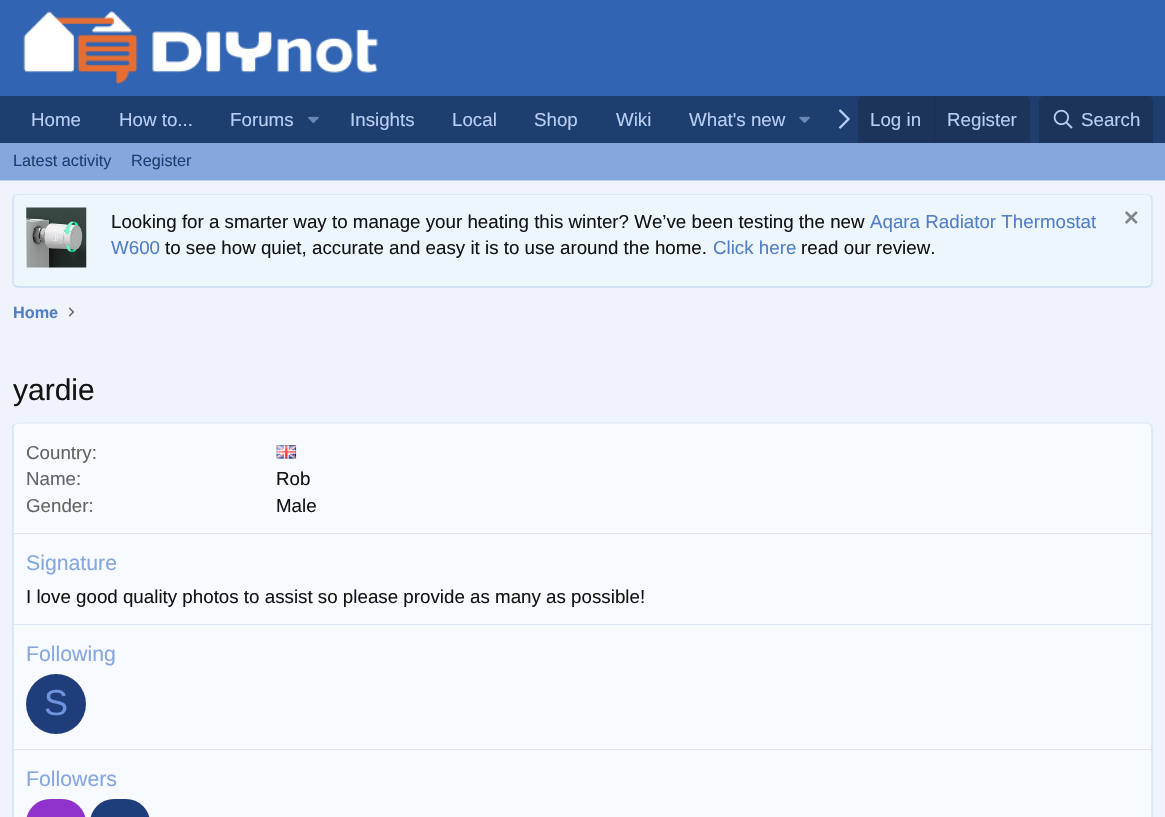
void draw(SkCanvas* c) {
SkPaint p;
p.setAntiAlias(true);
auto F=[&](const char* family, int weight, float size, bool italic = false){SkFontStyle style(weight, SkFontStyle::kNormal_Width,italic ? SkFontStyle::kItalic_Slant : SkFontStyle::kUpright_Slant);SkFont result(fontMgr->matchFamilyStyle(family, style), size);result.setSubpixel(true);return result;};
auto T=[&](const char* s, float x, float y, const SkFont& font){c->drawString(s, x, y, font, p);};
auto R=[&](float x, float y, float w, float h){c->drawRect(SkRect::MakeXYWH(x, y, w, h), p);};
auto Q=[&](float x, float y, float w, float h, float radius){c->drawRoundRect(SkRect::MakeXYWH(x, y, w, h), radius, radius, p);};
auto I=[&](const char* path, float x, float y, float w, float h){auto image = SkImages::DeferredFromEncodedData(SkData::MakeFromFileName(path));c->drawImageRect(image, SkRect::MakeXYWH(x, y, w, h), SkSamplingOptions());};
auto P=[&](const char* data, bool evenOdd = false){SkPath result = *SkParsePath::FromSVGString(data);if (evenOdd) result.setFillType(SkPathFillType::kEvenOdd);return result;};
c->clear(0xffeff3fb);
p.setColor(0xff3264b4);
R(0,0,1165,96);
I("1.png",23,11,355,73);
p.setColor(0xff1f3e70);
R(0,96,1165,47);
auto f1 = F("Liberation Sans",400,18.75);
p.setColor(0xffb8cff5);
T("Home",31,126,f1);
T("How to...",119,126,f1);
T("Forums",230,126,f1);
I("2.png",308,116,11,7);
T("Insights",350,126,f1);
T("Local",452,126,f1);
T("Shop",534,126,f1);
T("Wiki",616,126,f1);
T("What's new",689,126,f1);
I("3.png",799,116,11,7);
{
const SkColor colors[] = {0x001f3e70,0xff1f3e70};
const float stops[] = {0,.33};
const SkPoint ends[] = {{808,119}, {858,119}};
p.setShader(SkGradientShader::MakeLinear(ends, colors, stops, 2, SkTileMode::kClamp));
p.setAlpha(255);
}
R(808,117,2,2);
I("4.png",838,109,12,20);
p.setShader(nullptr);
p.setColor(0xff1c345b);
c->drawPath(P("M863 96h162c3 0 5 2 5 5v42h-172v-42c0-3 2-5 5-5z"),p);
p.setColor(0xffb8cff5);
T("Log in",870,126,f1);
p.setColor(0xff1a2d4b);
R(934,96,1,47);
p.setColor(0xffb8cff5);
T("Register",947,126,f1);
p.setColor(0xff1c345b);
c->drawPath(P("M1044 96h104c3 0 5 2 5 5v42h-114v-42c0-3 2-5 5-5z"),p);
I("5.png",1053,109,20,20);
p.setColor(0xffb8cff5);
T("Search",1081,126,f1);
p.setColor(0xff86a7dd);
R(0,143,1165,37);
p.setColor(0xffbccfec);
R(0,180,1165,1);
auto f2 = F("Liberation Sans",400,16.25);
p.setColor(0xff1f3e70);
T("Latest activity",13,166,f2);
T("Register",131,166,f2);
p.setColor(0xffedf6fd);
Q(13,194,1140,94,5);
p.setStroke(true);
p.setStrokeWidth(1.2);
p.setColor(0xffdce6f5);
c->drawPath(P("M14.5 195.5l3-1h1130l3 1"),p);
p.setColor(0xffd0ddf2);
c->drawPath(P("M1150.5 195.5l1.5 3v84.5l-1.5 2.5"),p);
p.setColor(0xffbccfec);
c->drawPath(P("M1150.5 285.5l-3 1.5h-1130l-3-1.5"),p);
p.setColor(0xffd0ddf2);
c->drawPath(P("M14.5 285.5l-1.5-2.5v-84.5l1.5-3"),p);
I("6.png",26,207,61,61);
p.setStroke(false);
p.setColor(0xff141414);
T("Looking for a smarter way to manage your heating this winter? We’ve been testing the new",111,228,f1);
p.setColor(0xff527ec5);
T("Aqara Radiator Thermostat",870,228,f1);
I("7.png",1125,211,13,13);
T("W600",111,254,f1);
p.setColor(0xff141414);
T("to see how quiet, accurate and easy it is to use around the home.",165,254,f1);
p.setColor(0xff527ec5);
T("Click here",713,254,f1);
p.setColor(0xff141414);
T("read our review.",801,254,f1);
auto f3 = F("Liberation Sans",700,16.25);
p.setColor(0xff527ec5);
T("Home",13,318,f3);
I("8.png",68,307,7,10);
auto f4 = F("Liberation Sans",400,30);
p.setColor(0xff141414);
T("yardie",13,400,f4);
p.setColor(0xfff7faff);
Q(13,423,1140,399,5);
p.setStroke(true);
p.setColor(0xffdce6f5);
c->drawPath(P("M14.5 424.5l3-1.5h1130l3 1.5"),p);
p.setColor(0xffd0ddf2);
c->drawPath(P("M1150.5 424.5l1.5 2v148.5v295l-1.5 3"),p);
c->drawPath(P("M14.5 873l-1.5-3v-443.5l1.5-2"),p);
p.setStroke(false);
p.setColor(0xff646464);
T("Country:",26,459,f1);
I("9.png",276,445,21,14);
T("Name:",26,485,f1);
p.setColor(0xff141414);
T("Rob",276,485,f1);
p.setColor(0xff646464);
T("Gender:",26,512,f1);
p.setColor(0xff141414);
T("Male",276,512,f1);
p.setColor(0xffdce6f5);
R(14,533,1137,1);
auto f5 = F("Liberation Sans",400,21.25);
p.setColor(0xff86a7dd);
T("Signature",26,570,f5);
p.setColor(0xff141414);
T("I love good quality photos to assist so please provide as many as possible!",26,603,f1);
p.setColor(0xffdce6f5);
R(14,624,1137,1);
p.setColor(0xff86a7dd);
T("Following",26,661,f5);
p.setColor(0xff1f3d7a);
c->drawCircle(56,704,30,p);
auto f6 = F("Liberation Sans",400,36);
p.setColor(0xff7094db);
T("S",44,715,f6);
p.setColor(0xffdce6f5);
R(14,749,1137,1);
p.setColor(0xff86a7dd);
T("Followers",26,786,f5);
p.setColor(0xff8f33cc);
Q(26,799,60,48,30);
p.setColor(0xff1f3d7a);
Q(90,799,60,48,30);
}
